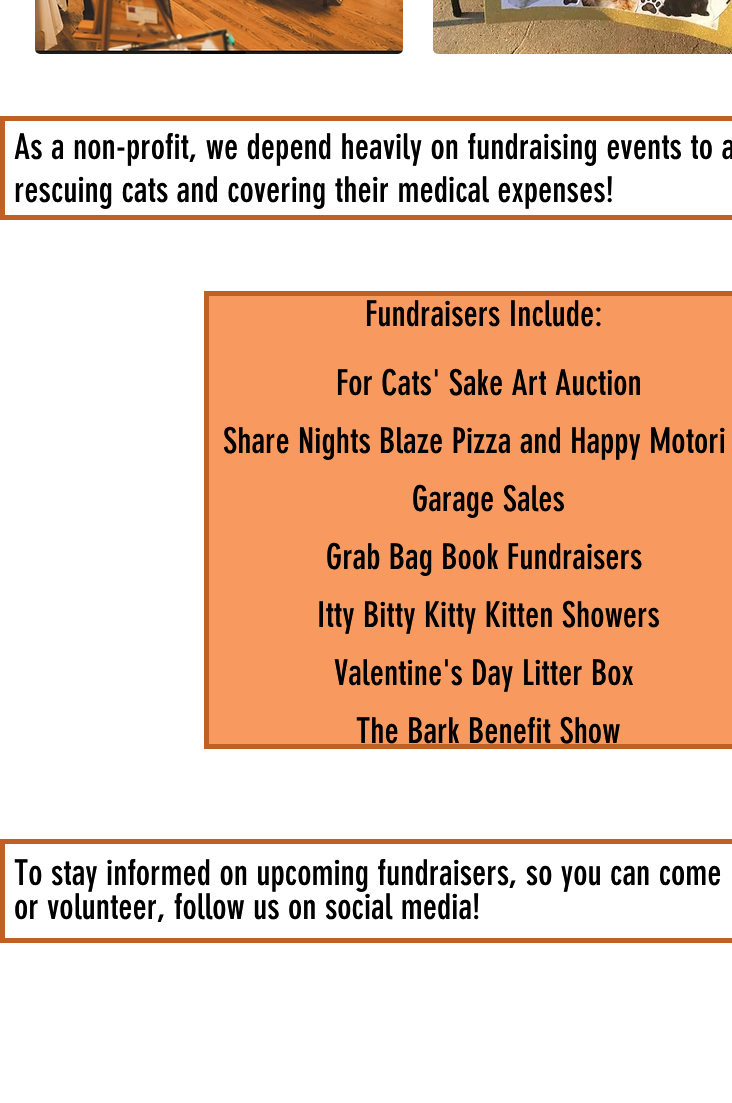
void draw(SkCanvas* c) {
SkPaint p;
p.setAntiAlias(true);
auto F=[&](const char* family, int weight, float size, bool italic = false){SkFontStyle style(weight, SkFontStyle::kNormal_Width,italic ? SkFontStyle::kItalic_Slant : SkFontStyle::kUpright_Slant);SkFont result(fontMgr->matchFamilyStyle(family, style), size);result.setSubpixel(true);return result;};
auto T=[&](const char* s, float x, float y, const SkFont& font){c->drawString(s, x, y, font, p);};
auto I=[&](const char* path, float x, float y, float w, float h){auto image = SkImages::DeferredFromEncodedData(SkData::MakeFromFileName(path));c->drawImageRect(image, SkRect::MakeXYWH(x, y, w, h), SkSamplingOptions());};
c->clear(0xffffffff);
I("1.png",35,0,368,54);
I("2.png",433,0,299,54);
p.setStroke(true);
p.setStrokeWidth(5);
p.setColor(0xffbf6025);
c->drawRect(SkRect::MakeXYWH(2.5,118.5,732,99),p);
auto f1 = F("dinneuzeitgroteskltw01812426",400,35);
p.setStroke(false);
p.setColor(0xff000000);
T("As a non-profit, we depend heavily on fundraising events to a",14,159,f1);
T("rescuing cats and covering their medical expenses!",14,202,f1);
p.setColor(0xfff89a5f);
c->drawRect(SkRect::MakeXYWH(206.5,293.5,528,453),p);
p.setStroke(true);
p.setColor(0xffbf6025);
c->drawRect(SkRect::MakeXYWH(206.5,293.5,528,453),p);
p.setStroke(false);
p.setColor(0xff000000);
T("Fundraisers Include:",365,326,f1);
T("For Cats' Sake Art Auction",336,395,f1);
T("Share Nights Blaze Pizza and Happy Motori",223,453,f1);
T("Garage Sales",412,511,f1);
T("Grab Bag Book Fundraisers",326,569,f1);
T("Itty Bitty Kitty Kitten Showers",317,627,f1);
T("Valentine's Day Litter Box",334,685,f1);
T("The Bark Benefit Show",356,743,f1);
p.setStroke(true);
p.setColor(0xffbf6025);
c->drawRect(SkRect::MakeXYWH(2.5,841.5,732,99),p);
p.setStroke(false);
p.setColor(0xff000000);
T("To stay informed on upcoming fundraisers, so you can come",14,885,f1);
T("or volunteer, follow us on social media!",14,919,f1);
}
